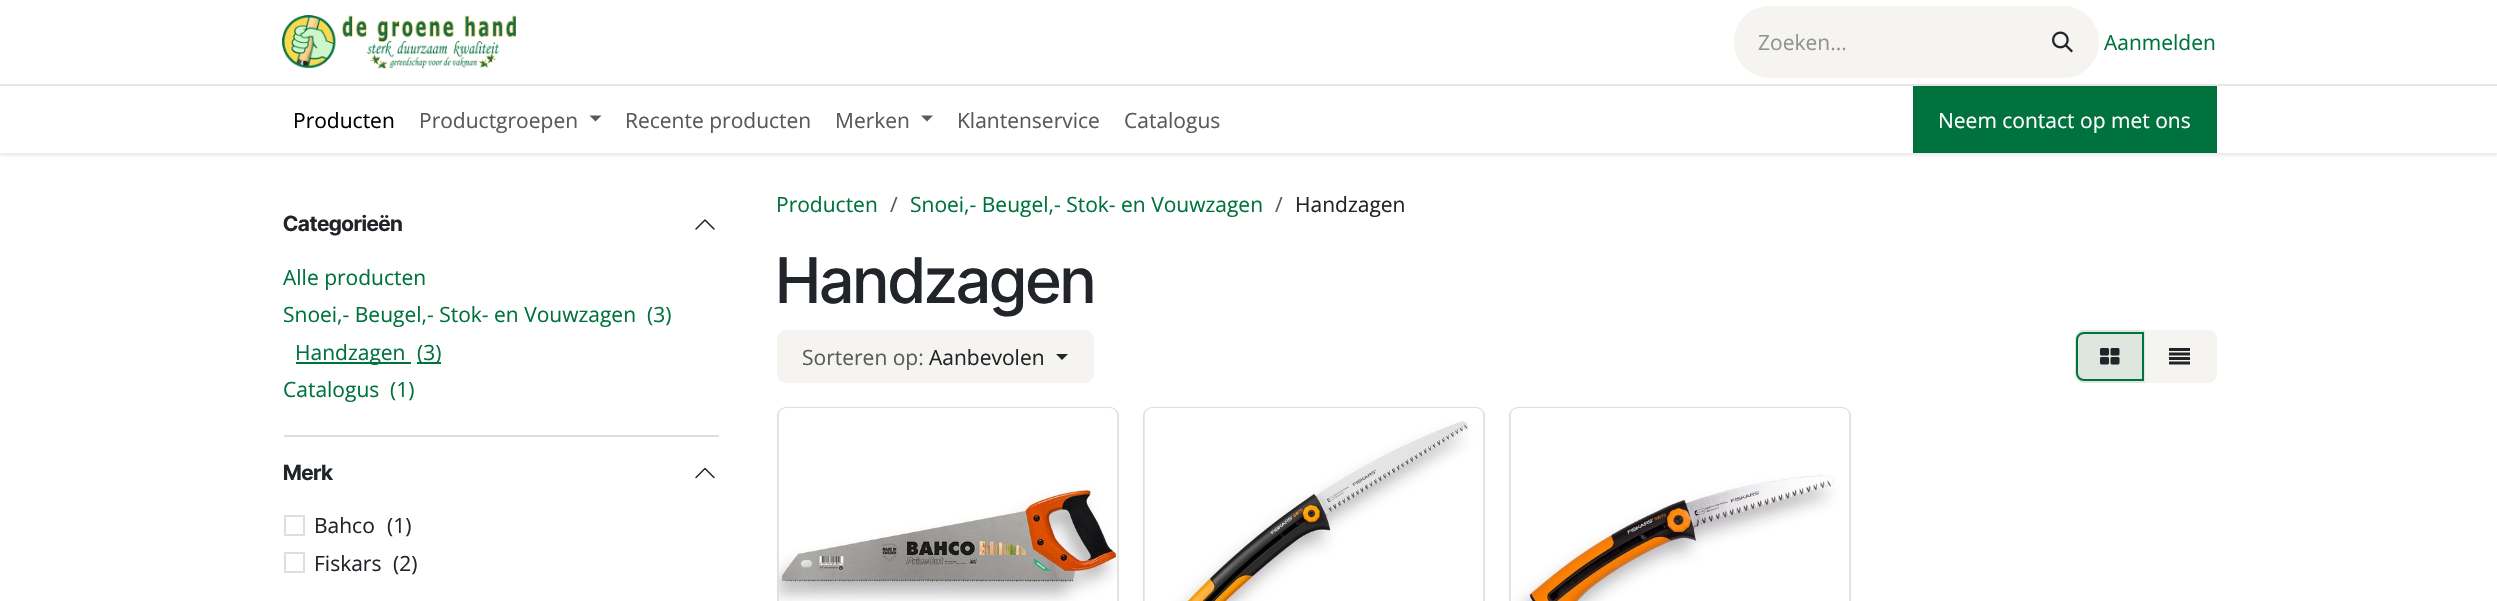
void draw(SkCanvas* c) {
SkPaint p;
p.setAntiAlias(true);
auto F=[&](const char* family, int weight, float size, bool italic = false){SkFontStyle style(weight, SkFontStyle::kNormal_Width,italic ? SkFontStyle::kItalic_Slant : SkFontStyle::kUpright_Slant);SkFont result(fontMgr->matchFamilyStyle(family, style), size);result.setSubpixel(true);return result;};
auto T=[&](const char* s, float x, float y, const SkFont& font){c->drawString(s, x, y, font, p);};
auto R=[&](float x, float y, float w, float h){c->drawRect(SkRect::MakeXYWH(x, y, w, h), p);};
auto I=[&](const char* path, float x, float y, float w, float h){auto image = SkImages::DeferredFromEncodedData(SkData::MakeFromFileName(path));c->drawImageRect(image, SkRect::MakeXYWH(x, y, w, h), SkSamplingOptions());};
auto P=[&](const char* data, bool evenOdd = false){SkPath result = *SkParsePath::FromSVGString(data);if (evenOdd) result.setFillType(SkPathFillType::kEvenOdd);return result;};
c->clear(0xffffffff);
c->save();
c->clipRect(SkRect::MakeXYWH(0,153,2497,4));
p.setColor(0x1a000000);
p.setMaskFilter(SkMaskFilter::MakeBlur(kNormal_SkBlurStyle, 2));
c->drawRect(SkRect::MakeXYWH(0,2,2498,153),p);
p.setMaskFilter(nullptr);
c->restore();
I("1.png",282,15,234,54);
p.setColor(0xfff5f4f0);
c->drawPath(P("M1770 6h258v72h-258c-20 0-36-16-36-36c0-20 16-36 36-36z"),p);
auto f1 = F("Open Sans",400,21);
p.setColor(0xff909294);
T("Zoeken...",1758,50,f1);
p.setColor(0xfff5f4f0);
c->drawPath(P("M2027 6h36c20 0 36 16 36 36c0 20-16 36-36 36h-36z"),p);
I("2.png",2052,31,21,22);
p.setColor(0xff00723e);
T("Aanmelden",2104,50,f1);
p.setColor(0xffe6e6e6);
R(0,84,2497,2);
p.setColor(0xff000000);
T("Producten",293,128,f1);
p.setColor(0xff595959);
T("Productgroepen",419,128,f1);
c->drawPath(P("M589.5 115.5h12l-6 6z"),p);
T("Recente producten",625,128,f1);
T("Merken",835,128,f1);
c->drawPath(P("M921 115.5h12l-6 6z"),p);
T("Klantenservice",957,128,f1);
T("Catalogus",1124,128,f1);
p.setColor(0xff00723e);
R(1913,86,304,67);
p.setColor(0xffffffff);
T("Neem contact op met ons",1938,128,f1);
auto f2 = F("Inter Tight",700,21);
p.setColor(0xff212529);
T("Categorieën",283,231,f2);
p.setStroke(true);
p.setStrokeWidth(1.5);
p.setStrokeCap(SkPaint::kRound_Cap);
p.setStrokeJoin(SkPaint::kRound_Join);
c->drawPath(P("M714 229l-9-9l-9 9"),p);
p.setStroke(false);
p.setColor(0xff00723e);
T("Alle producten",283,285,f1);
T("Snoei,- Beugel,- Stok- en Vouwzagen",283,322,f1);
T("(3)",647,322,f1);
R(296,362,115,2);
T("Handzagen",295,360,f1);
R(417,362,24,2);
T("(3)",417,360,f1);
T("Catalogus",283,397,f1);
T("(1)",390,397,f1);
p.setColor(0xffdededf);
R(284,435,435,2);
p.setColor(0xff212529);
T("Merk",283,480,f2);
p.setStroke(true);
c->drawPath(P("M714 477.5l-9-9l-9 9"),p);
p.setStrokeWidth(2);
p.setStrokeCap(SkPaint::kButt_Cap);
p.setStrokeJoin(SkPaint::kMiter_Join);
p.setColor(0xffdededf);
c->drawRect(SkRect::MakeXYWH(285,516,19,19),p);
p.setStroke(false);
p.setColor(0xff212529);
T("Bahco",314,533,f1);
T("(1)",387,533,f1);
p.setStroke(true);
p.setColor(0xffdededf);
c->drawRect(SkRect::MakeXYWH(285,553,19,19),p);
p.setStroke(false);
p.setColor(0xff212529);
T("Fiskars",314,571,f1);
T("(2)",393,571,f1);
p.setColor(0xff00723e);
T("Producten",776,212,f1);
p.setColor(0xff595c5f);
T("/",890,212,f1);
p.setColor(0xff00723e);
T("Snoei,- Beugel,- Stok- en Vouwzagen",910,212,f1);
p.setColor(0xff595c5f);
T("/",1275,212,f1);
p.setColor(0xff212529);
T("Handzagen",1295,212,f1);
auto f3 = F("Inter Tight",500,63);
T("Handzagen",776,303,f3);
p.setColor(0xfff5f4f0);
c->drawRoundRect(SkRect::MakeXYWH(778,331,315,51),8,8,p);
p.setStroke(true);
c->drawRoundRect(SkRect::MakeXYWH(778,331,315,51),8,8,p);
p.setStroke(false);
p.setColor(0xff595c5f);
T("Sorteren op:",802,365,f1);
p.setColor(0xff212529);
T("Aanbevolen",929,365,f1);
c->drawPath(P("M1056 354h12l-6 6z"),p);
p.setColor(0xfff5f4f0);
c->drawPath(P("M2145 331h63c4.5 0 8 3.5 8 8v35c0 4.5-3.5 8-8 8h-63z"),p);
p.setStroke(true);
c->drawPath(P("M2145 331h63c4.5 0 8 3.5 8 8v35c0 4.5-3.5 8-8 8h-63z"),p);
p.setStroke(false);
p.setColor(0xffdde7de);
c->drawPath(P("M2084 330h61v53h-61c-5 0-9-4-9-9v-35c0-5 4-9 9-9z"),p);
p.setStroke(true);
p.setColor(0xff00723e);
c->drawPath(P("M2084 333h59v47h-59c-4 0-7-3-7-7v-33c0-4 3-7 7-7z"),p);
I("3.png",2100,348,20,17);
I("4.png",2169,348,21,17);
p.setColor(0xffdededf);
c->drawRoundRect(SkRect::MakeXYWH(778,408,340,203),8,8,p);
I("5.png",778,408,340,193);
c->drawRoundRect(SkRect::MakeXYWH(1144,408,340,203),8,8,p);
I("6.png",1144,408,340,193);
c->drawRoundRect(SkRect::MakeXYWH(1510,408,340,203),8,8,p);
I("7.png",1510,408,340,193);
}
